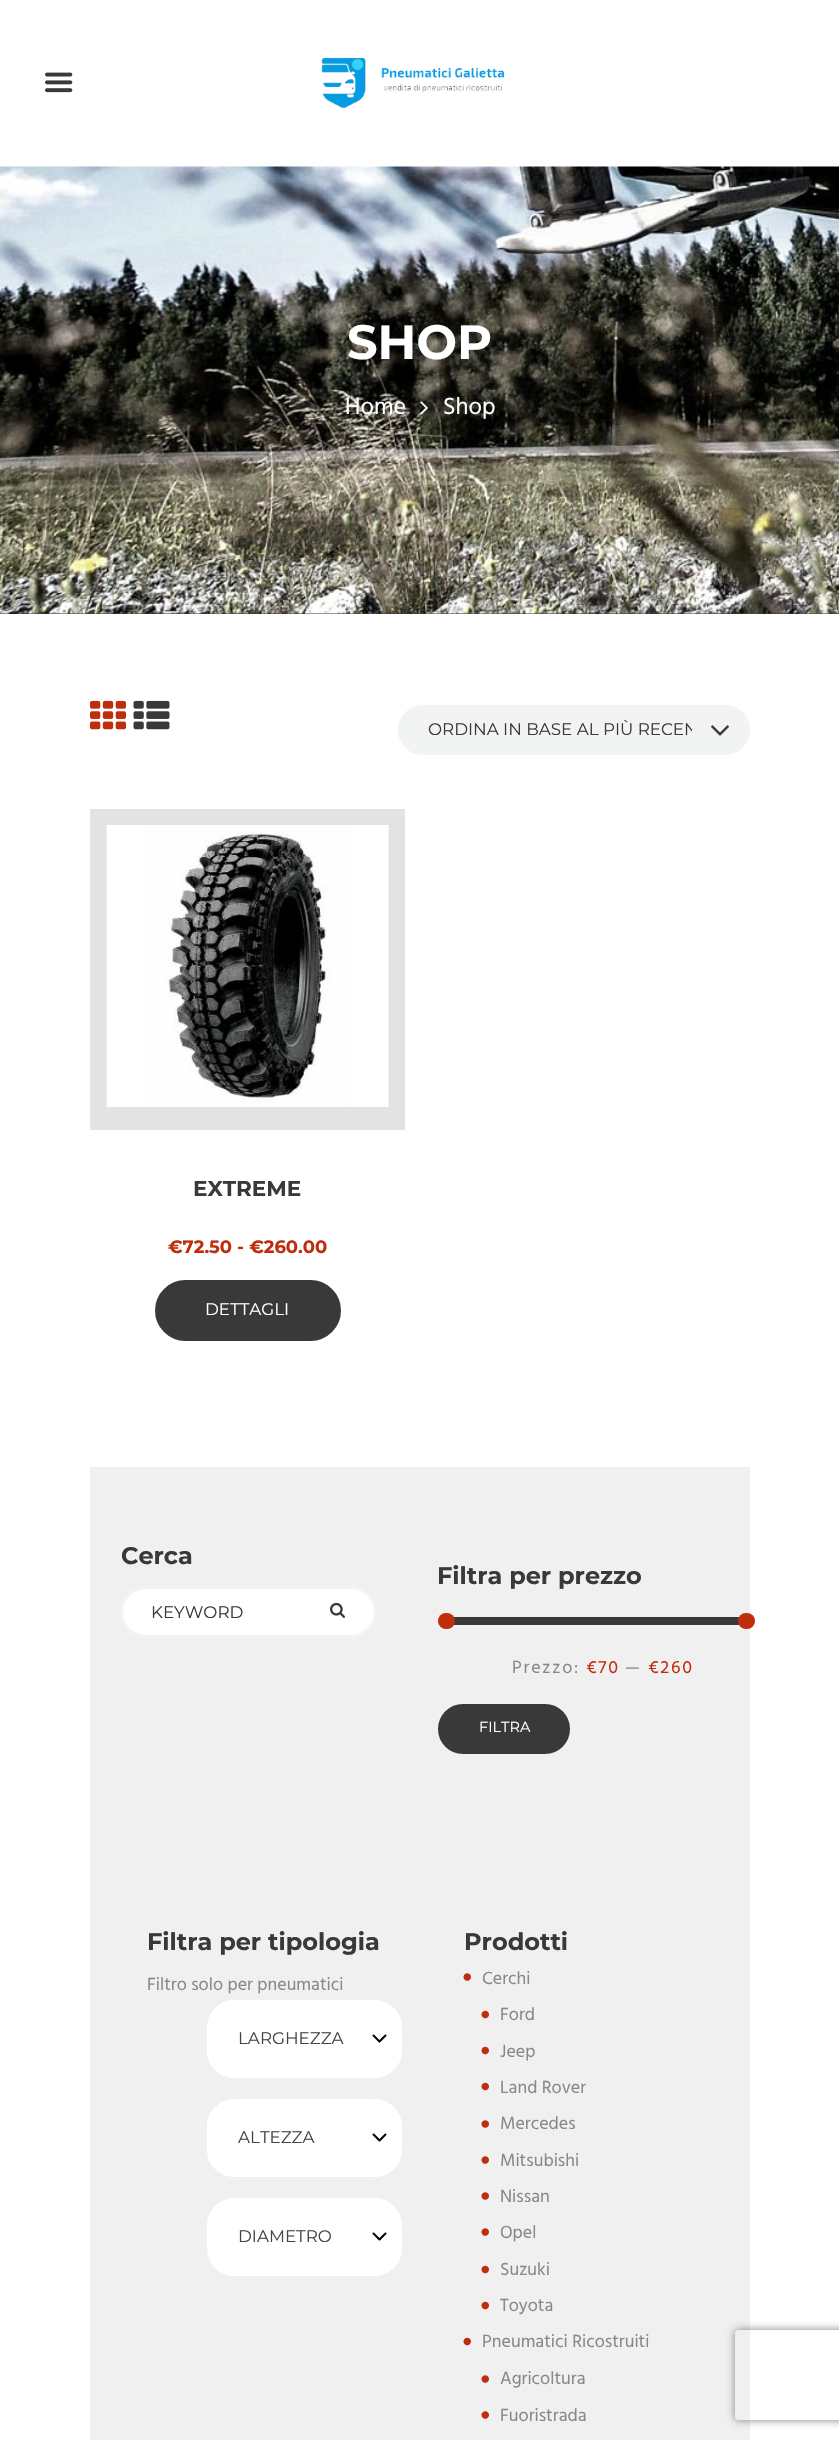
void draw(SkCanvas* c) {
SkPaint p;
p.setAntiAlias(true);
auto F=[&](const char* family, int weight, float size, bool italic = false){SkFontStyle style(weight, SkFontStyle::kNormal_Width,italic ? SkFontStyle::kItalic_Slant : SkFontStyle::kUpright_Slant);SkFont result(fontMgr->matchFamilyStyle(family, style), size);result.setSubpixel(true);return result;};
auto T=[&](const char* s, float x, float y, const SkFont& font){c->drawString(s, x, y, font, p);};
auto L=[&](const char* s, float x, float y, const SkFont& font, const SkPaint& ink, float letter, float word){std::vector<SkGlyphID> glyphs(font.countText(s, strlen(s), SkTextEncoding::kUTF8));std::vector<float> xs(glyphs.size());font.textToGlyphs(s, strlen(s), SkTextEncoding::kUTF8, glyphs);font.getXPos(glyphs, xs, x);float extra = 0;for (size_t i = 0; i < glyphs.size(); i++) {xs[i] += extra;extra += letter + word * (glyphs[i] == font.unicharToGlyph(' '));}c->drawTextBlob(SkTextBlob::MakeFromPosHGlyphs(glyphs, xs, y, font), 0, 0, ink);};
auto R=[&](float x, float y, float w, float h){c->drawRect(SkRect::MakeXYWH(x, y, w, h), p);};
auto Q=[&](float x, float y, float w, float h, float radius){c->drawRoundRect(SkRect::MakeXYWH(x, y, w, h), radius, radius, p);};
auto I=[&](const char* path, float x, float y, float w, float h){auto image = SkImages::DeferredFromEncodedData(SkData::MakeFromFileName(path));c->drawImageRect(image, SkRect::MakeXYWH(x, y, w, h), SkSamplingOptions());};
auto P=[&](const char* data, bool evenOdd = false){SkPath result = *SkParsePath::FromSVGString(data);if (evenOdd) result.setFillType(SkPathFillType::kEvenOdd);return result;};
c->clear(0xffffffff);
I("1.png",45,72,28,21);
I("2.png",321,57,184,52);
p.setColor(0xff393939);
R(0,613,839,1);
I("3.png",0,166,839,448);
auto f1 = F("Montserrat",700,48);
p.setColor(0xffffffff);
T("SHOP",347,359,f1);
auto f2 = F("Hind",400,24);
T("Home",345,414,f2);
I("4.png",420,401,8,14);
T("Shop",443,414,f2);
I("5.png",90,700,36,30);
I("6.png",133,700,37,30);
p.setColor(0xfff2f3f3);
c->drawRoundRect(SkRect::MakeXYWH(399.5,706.5,349,47),23.5,23.5,p);
p.setStroke(true);
p.setStrokeWidth(3);
c->drawRoundRect(SkRect::MakeXYWH(399.5,706.5,349,47),23.5,23.5,p);
c->save();
c->clipRect(SkRect::MakeXYWH(428,719,264,22));
auto f3 = F("Montserrat",400,16.75);
p.setStroke(false);
p.setColor(0xff393939);
T("ORDINA IN BASE AL PIÙ RECEN",428,735,f3);
c->restore();
I("7.png",711,725,18,11);
p.setColor(0xffe3e3e3);
R(90,809,315,321);
I("8.png",106,825,283,282);
auto f4 = F("Montserrat",700,21.5);
p.setColor(0xff393939);
T("EXTREME",193,1196,f4);
auto f5 = F("Montserrat",700,18);
p.setColor(0xffbf2d0d);
T("€72.50 - €260.00",168,1253,f5);
p.setColor(0xff393939);
c->drawRoundRect(SkRect::MakeXYWH(156.5,1281.5,183,58),29,29,p);
p.setStroke(true);
c->drawRoundRect(SkRect::MakeXYWH(156.5,1281.5,183,58),29,29,p);
p.setStroke(false);
p.setColor(0xffffffff);
T("DETTAGLI",205,1315,f3);
p.setColor(0xfff0f0f0);
R(90,1467,660,973);
auto f6 = F("Montserrat",700,24);
p.setColor(0xff393939);
T("Cerca",121,1564,f6);
p.setColor(0xffffffff);
c->drawRoundRect(SkRect::MakeXYWH(121.5,1587.5,254,49),24.5,24.5,p);
p.setStroke(true);
p.setColor(0xfff2f3f3);
c->drawRoundRect(SkRect::MakeXYWH(121.5,1587.5,254,49),24.5,24.5,p);
p.setStroke(false);
p.setColor(0xff393939);
T("KEYWORD",151,1618,f3);
I("9.png",330,1602,15,16);
T("Filtra per prezzo",437,1584,f6);
R(447,1617,300,8);
p.setColor(0xffbf2d0d);
Q(438,1613,17,16,8);
Q(738,1613,17,16,8);
auto f7 = F("Hind",400,18);
p.setColor(0xff888888);
L("Prezzo:",512,1673,f7,p,1.75,0);
p.setColor(0xffbf2d0d);
L("€70",586,1673,f7,p,1.75,0);
p.setColor(0xff888888);
L("—",625,1673,f7,p,1.75,0);
p.setColor(0xffbf2d0d);
L("€260",648,1673,f7,p,1.75,0);
p.setColor(0xff393939);
c->drawRoundRect(SkRect::MakeXYWH(439.5,1705.5,129,47),23.5,23.5,p);
p.setStroke(true);
c->drawRoundRect(SkRect::MakeXYWH(439.5,1705.5,129,47),23.5,23.5,p);
auto f8 = F("Montserrat",400,14.5);
p.setStroke(false);
p.setColor(0xffffffff);
T("FILTRA",479,1732,f8);
p.setColor(0xff393939);
T("Filtra per tipologia",147,1950,f6);
p.setColor(0xff888888);
T("Filtro solo per pneumatici",147,1990,f7);
p.setColor(0xffffffff);
c->drawRoundRect(SkRect::MakeXYWH(208.5,2001.5,192,75),25.5,25.5,p);
p.setStroke(true);
c->drawRoundRect(SkRect::MakeXYWH(208.5,2001.5,192,75),25.5,25.5,p);
p.setStroke(false);
p.setColor(0xff444444);
T("LARGHEZZA",238,2044,f3);
p.setStroke(true);
p.setStrokeWidth(2);
p.setStrokeCap(SkPaint::kRound_Cap);
p.setStrokeJoin(SkPaint::kRound_Join);
p.setColor(0xff000000);
c->drawPath(P("M373.5 2035.5l6 6l6-6"),p);
p.setStroke(false);
p.setColor(0xffffffff);
c->drawRoundRect(SkRect::MakeXYWH(208.5,2100.5,192,75),25.5,25.5,p);
p.setStroke(true);
p.setStrokeWidth(3);
p.setStrokeCap(SkPaint::kButt_Cap);
p.setStrokeJoin(SkPaint::kMiter_Join);
c->drawRoundRect(SkRect::MakeXYWH(208.5,2100.5,192,75),25.5,25.5,p);
p.setStroke(false);
p.setColor(0xff444444);
T("ALTEZZA",238,2143,f3);
p.setStroke(true);
p.setStrokeWidth(2);
p.setStrokeCap(SkPaint::kRound_Cap);
p.setStrokeJoin(SkPaint::kRound_Join);
p.setColor(0xff000000);
c->drawPath(P("M373.5 2134.5l6 6l6-6"),p);
p.setStroke(false);
p.setColor(0xffffffff);
c->drawRoundRect(SkRect::MakeXYWH(208.5,2199.5,192,75),25.5,25.5,p);
p.setStroke(true);
p.setStrokeWidth(3);
p.setStrokeCap(SkPaint::kButt_Cap);
p.setStrokeJoin(SkPaint::kMiter_Join);
c->drawRoundRect(SkRect::MakeXYWH(208.5,2199.5,192,75),25.5,25.5,p);
p.setStroke(false);
p.setColor(0xff444444);
T("DIAMETRO",238,2242,f3);
p.setStroke(true);
p.setStrokeWidth(2);
p.setStrokeCap(SkPaint::kRound_Cap);
p.setStrokeJoin(SkPaint::kRound_Join);
p.setColor(0xff000000);
c->drawPath(P("M373.5 2233.5l6 6l6-6"),p);
p.setStroke(false);
p.setColor(0xff393939);
T("Prodotti",464,1950,f6);
I("10.png",463,1973,8,8);
p.setColor(0xff888888);
T("Cerchi",482,1984,f7);
I("11.png",481,2010,8,9);
T("Ford",500,2020,f7);
I("11.png",481,2046,8,9);
T("Jeep",500,2057,f7);
I("11.png",481,2082,8,9);
T("Land Rover",500,2093,f7);
I("10.png",481,2120,8,8);
T("Mercedes",500,2129,f7);
I("10.png",481,2156,8,8);
T("Mitsubishi",500,2166,f7);
I("10.png",481,2192,8,8);
T("Nissan",500,2202,f7);
I("10.png",481,2228,8,8);
T("Opel",500,2238,f7);
I("11.png",481,2265,8,9);
T("Suzuki",500,2275,f7);
I("11.png",481,2301,8,9);
T("Toyota",500,2311,f7);
I("11.png",463,2337,8,9);
T("Pneumatici Ricostruiti",482,2347,f7);
I("10.png",481,2375,8,8);
T("Agricoltura",500,2384,f7);
I("10.png",481,2411,8,8);
T("Fuoristrada",500,2421,f7);
c->save();
c->clipPath(P("M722 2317h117v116h-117zm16 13h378c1.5 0 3 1.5 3 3v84c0 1.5-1.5 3-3 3h-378c-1.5 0-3-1.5-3-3v-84c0-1.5 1.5-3 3-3z",true),true);
p.setColor(0xff808080);
p.setMaskFilter(SkMaskFilter::MakeBlur(kNormal_SkBlurStyle, 4));
c->drawRoundRect(SkRect::MakeXYWH(735,2330,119,90),3,3,p);
p.setMaskFilter(nullptr);
c->restore();
}
